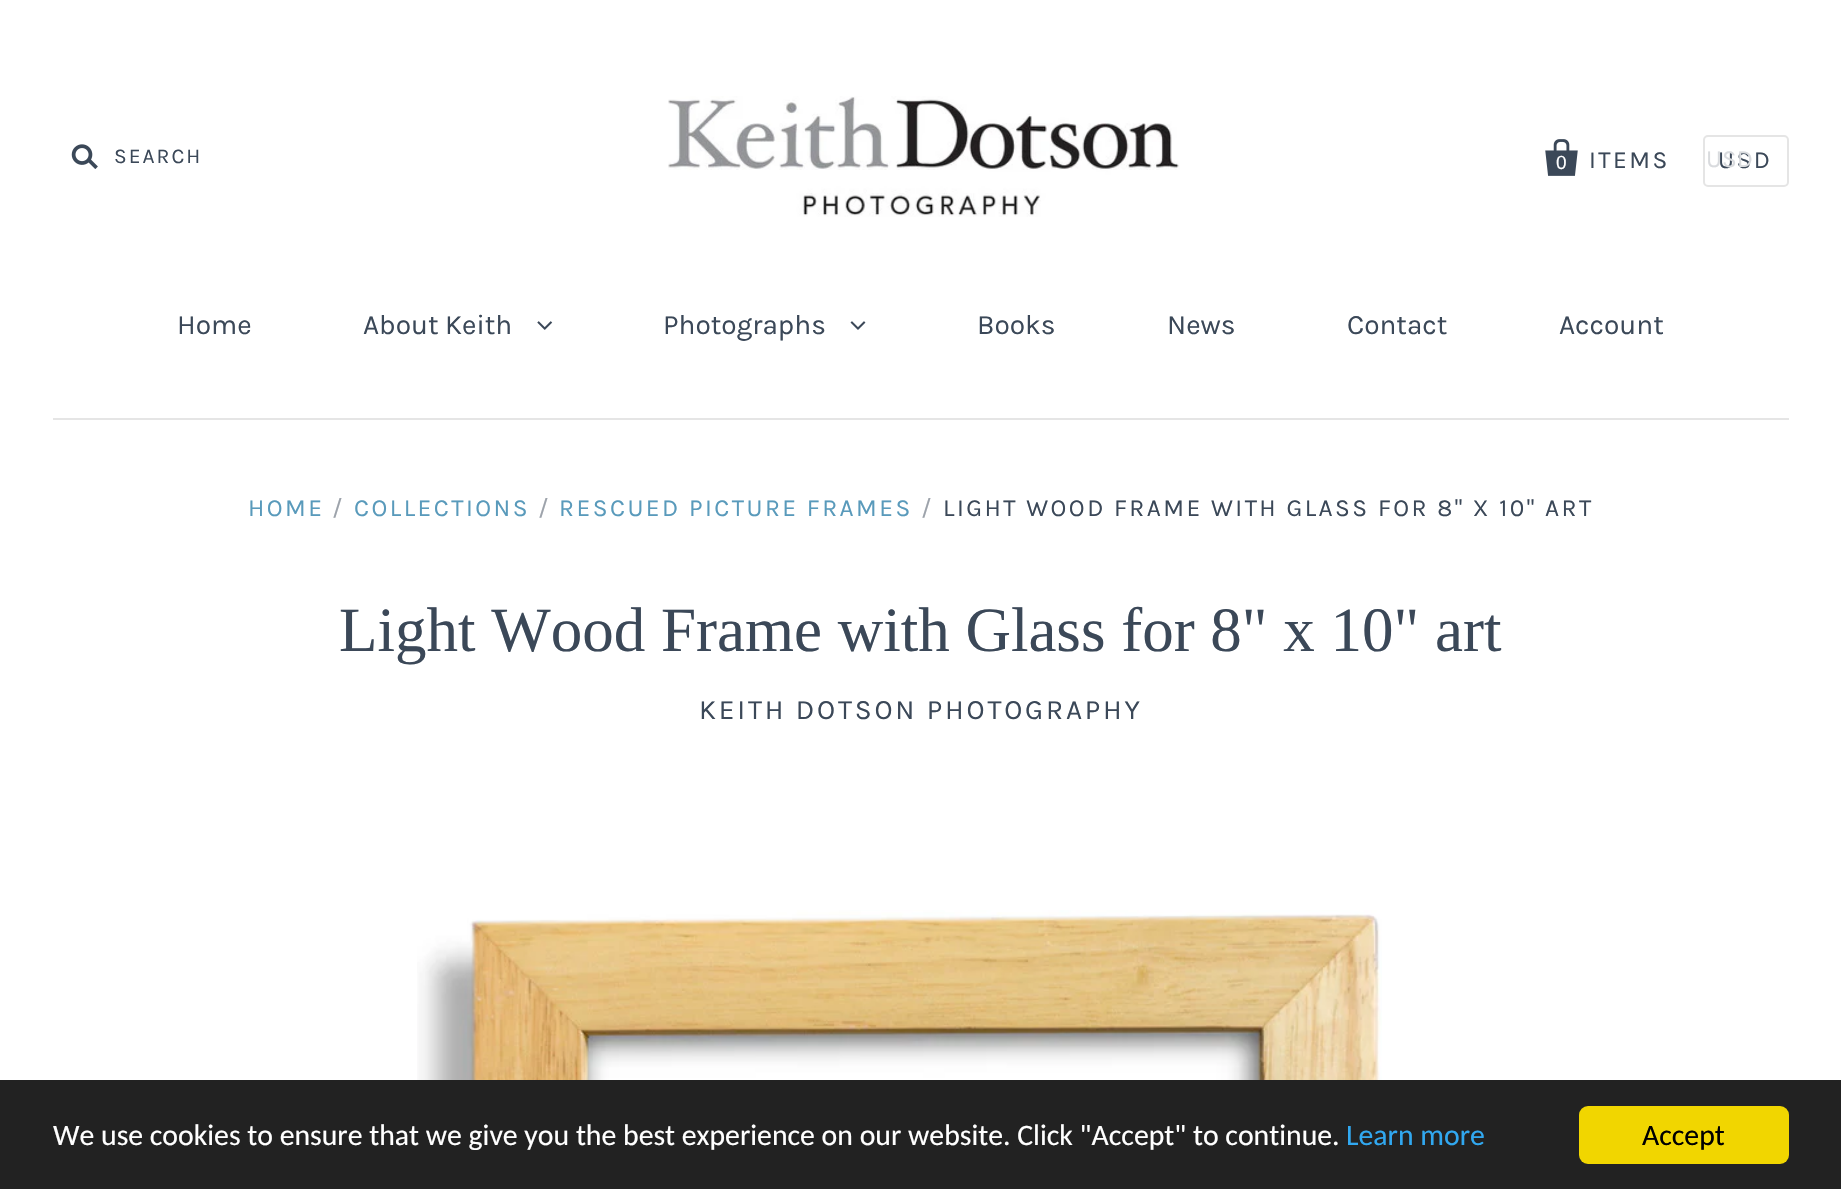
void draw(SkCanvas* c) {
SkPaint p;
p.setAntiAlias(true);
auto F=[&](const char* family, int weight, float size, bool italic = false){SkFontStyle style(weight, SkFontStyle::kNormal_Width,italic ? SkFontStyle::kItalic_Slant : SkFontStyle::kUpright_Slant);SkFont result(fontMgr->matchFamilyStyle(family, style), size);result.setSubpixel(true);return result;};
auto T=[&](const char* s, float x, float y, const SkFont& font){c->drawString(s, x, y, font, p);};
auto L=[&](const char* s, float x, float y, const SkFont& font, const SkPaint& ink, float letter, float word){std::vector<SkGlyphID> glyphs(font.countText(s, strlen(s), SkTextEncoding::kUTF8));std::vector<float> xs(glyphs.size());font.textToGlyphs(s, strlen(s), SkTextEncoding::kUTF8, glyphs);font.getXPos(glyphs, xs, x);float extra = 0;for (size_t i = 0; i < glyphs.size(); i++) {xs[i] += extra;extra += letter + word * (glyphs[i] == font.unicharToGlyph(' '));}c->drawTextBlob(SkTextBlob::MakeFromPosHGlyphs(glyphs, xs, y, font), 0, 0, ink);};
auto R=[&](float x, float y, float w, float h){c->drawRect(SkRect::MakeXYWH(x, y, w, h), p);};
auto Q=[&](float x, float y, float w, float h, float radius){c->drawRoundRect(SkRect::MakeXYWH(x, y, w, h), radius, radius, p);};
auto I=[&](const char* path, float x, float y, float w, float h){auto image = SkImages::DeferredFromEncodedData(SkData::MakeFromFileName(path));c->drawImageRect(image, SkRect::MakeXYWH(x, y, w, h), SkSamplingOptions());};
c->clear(0xffffffff);
p.setColor(0xffe5e5e5);
R(53,418,1736,2);
I("1.png",71,144,27,25);
auto f1 = F("Karla",400,21);
p.setColor(0xff3b4858);
L("SEARCH",114,163,f1,p,2,0);
I("2.png",668,96,512,121);
I("3.png",1545,139,33,37);
auto f2 = F("Karla",400,24.5);
L("ITEMS",1589,168,f2,p,2.45,0);
auto f3 = F("Liberation Sans",400,19);
p.setColor(0xffffffff);
L("0",1556,169,f3,p,2.45,0);
p.setStroke(true);
p.setStrokeWidth(2);
p.setColor(0xffe5e5e5);
c->drawRoundRect(SkRect::MakeXYWH(1704,136,84,50),4,4,p);
p.setStroke(false);
p.setColor(0xff3b4858);
L("USD",1718,168,f2,p,2.45,0);
p.setColor(0xffd9dbde);
T("USD",1706,167,f2);
auto f4 = F("Karla",400,28);
p.setColor(0xff3b4858);
T("Home",177,334,f4);
T("About Keith",363,334,f4);
I("4.png",537,321,16,9);
T("Photographs",663,334,f4);
I("5.png",850,321,16,9);
T("Books",977,334,f4);
T("News",1167,334,f4);
T("Contact",1347,334,f4);
T("Account",1559,334,f4);
p.setColor(0xff599abb);
L("HOME",248,516,f2,p,2.45,0);
p.setColor(0xff9da3ab);
L("/",332,516,f2,p,2.45,0);
p.setColor(0xff599abb);
L("COLLECTIONS",354,516,f2,p,2.45,0);
p.setColor(0xff9da3ab);
L("/",538,516,f2,p,2.45,0);
p.setColor(0xff599abb);
L("RESCUED PICTURE FRAMES",559,516,f2,p,2.45,0);
p.setColor(0xff9da3ab);
L("/",921,516,f2,p,2.45,0);
p.setColor(0xff3b4858);
L("LIGHT WOOD FRAME WITH GLASS FOR 8\" X 10\" ART",943,516,f2,p,2.45,0);
auto f5 = F("Liberation Serif",400,63);
T("Light Wood Frame with Glass for 8\" x 10\" art",339,651,f5);
L("KEITH DOTSON PHOTOGRAPHY",699,719,f4,p,2.8,0);
I("6.png",417,910,965,170);
p.setColor(0xff222222);
R(0,1080,1841,109);
auto f6 = F("Carlito",400,29.75);
p.setColor(0xffffffff);
T("We use cookies to ensure that we give you the best experience on our website. Click \"Accept\" to continue.",53,1145,f6);
p.setColor(0xff31a8f0);
T("Learn more",1346,1145,f6);
p.setColor(0xfff1d600);
Q(1579,1106,210,58,9);
p.setColor(0xff000000);
T("Accept",1642,1145,f6);
}
